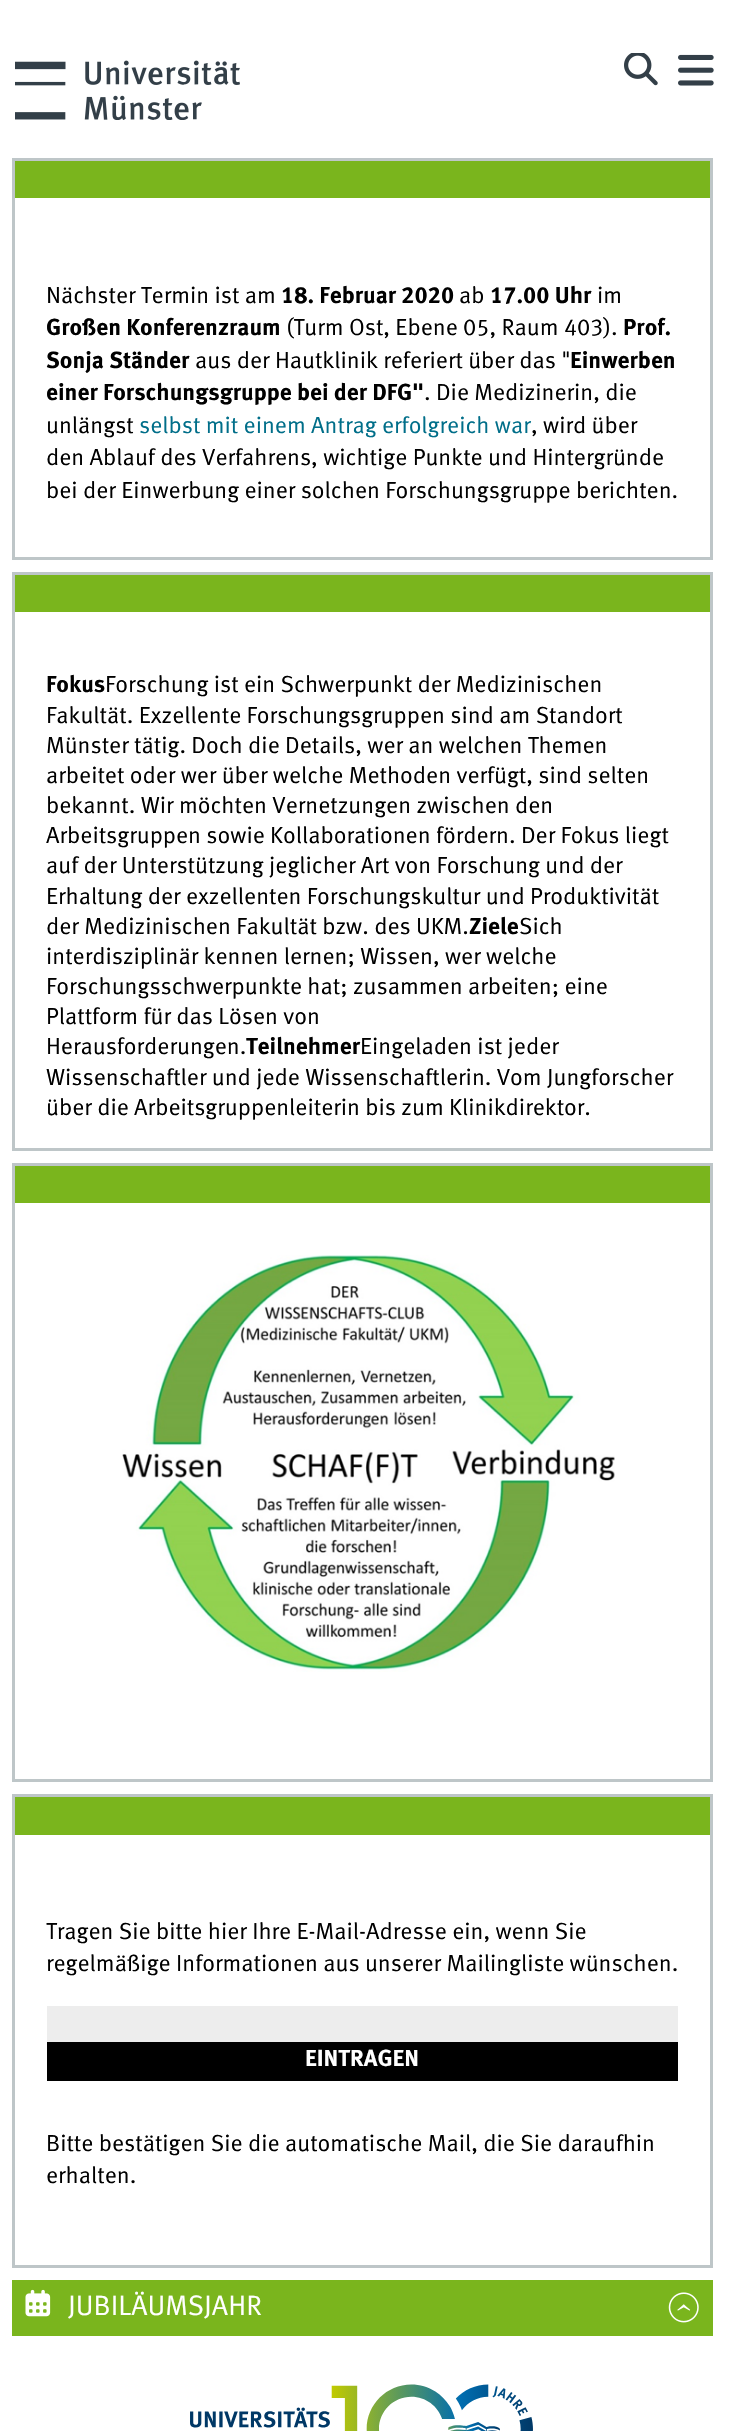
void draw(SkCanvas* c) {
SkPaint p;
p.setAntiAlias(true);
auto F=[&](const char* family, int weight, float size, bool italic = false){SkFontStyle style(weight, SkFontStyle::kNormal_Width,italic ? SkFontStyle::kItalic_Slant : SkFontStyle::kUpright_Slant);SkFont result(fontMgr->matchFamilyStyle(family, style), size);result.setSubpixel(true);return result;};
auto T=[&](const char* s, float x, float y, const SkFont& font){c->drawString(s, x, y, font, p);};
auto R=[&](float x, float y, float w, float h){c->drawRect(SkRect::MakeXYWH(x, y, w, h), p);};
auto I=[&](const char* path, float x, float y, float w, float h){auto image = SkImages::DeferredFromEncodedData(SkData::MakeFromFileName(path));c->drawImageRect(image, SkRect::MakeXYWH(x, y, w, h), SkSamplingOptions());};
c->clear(0xffffffff);
I("1.png",15,60,225,60);
I("2.png",624,53,34,33);
I("3.png",678,54,36,32);
p.setStroke(true);
p.setStrokeWidth(3);
p.setColor(0xffbec6c8);
c->drawRect(SkRect::MakeXYWH(13.5,159.5,698,399),p);
p.setStroke(false);
p.setColor(0xff7ab51d);
R(15,161,695,37);
auto f1 = F("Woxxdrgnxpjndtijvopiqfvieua",400,23.2);
p.setColor(0xff000000);
T("Nächster Termin ist am",46,303,f1);
auto f2 = F("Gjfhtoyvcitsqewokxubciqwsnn",700,23.2);
T("18. Februar 2020",281,303,f2);
T("ab",459,303,f1);
T("17.00 Uhr",490,303,f2);
T("im",597,303,f1);
T("Großen Konferenzraum",46,335,f2);
T("(Turm Ost, Ebene 05, Raum 403).",286,335,f1);
T("Prof.",623,335,f2);
T("Sonja Ständer",46,368,f2);
T("aus der Hautklinik referiert über das \"",195,368,f1);
T("Einwerben",570,368,f2);
T("einer Forschungsgruppe bei der DFG\"",46,400,f2);
T(". Die Medizinerin, die",424,400,f1);
T("unlängst",46,433,f1);
p.setColor(0xff006e89);
T("selbst mit einem Antrag erfolgreich war",139,433,f1);
p.setColor(0xff000000);
T(", wird über",531,433,f1);
T("den Ablauf des Verfahrens, wichtige Punkte und Hintergründe",46,465,f1);
T("bei der Einwerbung einer solchen Forschungsgruppe berichten.",46,498,f1);
p.setStroke(true);
p.setColor(0xffbec6c8);
c->drawRect(SkRect::MakeXYWH(13.5,573.5,698,576),p);
p.setStroke(false);
p.setColor(0xff7ab51d);
R(15,575,695,37);
p.setColor(0xff000000);
T("Fokus",46,692,f2);
T("Forschung ist ein Schwerpunkt der Medizinischen",105,692,f1);
T("Fakultät. Exzellente Forschungsgruppen sind am Standort",46,723,f1);
T("Münster tätig. Doch die Details, wer an welchen Themen",46,753,f1);
T("arbeitet oder wer über welche Methoden verfügt, sind selten",46,783,f1);
T("bekannt. Wir möchten Vernetzungen zwischen den",46,813,f1);
T("Arbeitsgruppen sowie Kollaborationen fördern. Der Fokus liegt",46,843,f1);
T("auf der Unterstützung jeglicher Art von Forschung und der",46,873,f1);
T("Erhaltung der exzellenten Forschungskultur und Produktivität",46,904,f1);
T("der Medizinischen Fakultät bzw. des UKM.",46,934,f1);
T("Ziele",469,934,f2);
T("Sich",519,934,f1);
T("interdisziplinär kennen lernen; Wissen, wer welche",46,964,f1);
T("Forschungsschwerpunkte hat; zusammen arbeiten; eine",46,994,f1);
T("Plattform für das Lösen von",46,1024,f1);
T("Herausforderungen.",46,1054,f1);
T("Teilnehmer",246,1054,f2);
T("Eingeladen ist jeder",360,1054,f1);
T("Wissenschaftler und jede Wissenschaftlerin. Vom Jungforscher",46,1085,f1);
T("über die Arbeitsgruppenleiterin bis zum Klinikdirektor.",46,1115,f1);
p.setStroke(true);
p.setColor(0xffbec6c8);
c->drawRect(SkRect::MakeXYWH(13.5,1164.5,698,616),p);
p.setStroke(false);
p.setColor(0xff7ab51d);
R(15,1166,695,37);
I("4.png",122,1255,493,417);
p.setStroke(true);
p.setColor(0xffbec6c8);
c->drawRect(SkRect::MakeXYWH(13.5,1795.5,698,471),p);
p.setStroke(false);
p.setColor(0xff7ab51d);
R(15,1797,695,38);
p.setColor(0xff000000);
T("Tragen Sie bitte hier Ihre E-Mail-Adresse ein, wenn Sie",46,1939,f1);
T("regelmäßige Informationen aus unserer Mailingliste wünschen.",46,1971,f1);
p.setColor(0xffededed);
R(47,2006,631,36);
p.setColor(0xff000000);
R(47,2042,631,39);
p.setColor(0xffffffff);
T("EINTRAGEN",305,2066,f2);
p.setColor(0xff000000);
T("Bitte bestätigen Sie die automatische Mail, die Sie daraufhin",46,2151,f1);
T("erhalten.",46,2183,f1);
p.setColor(0xff7ab51d);
R(12,2280,701,56);
I("5.png",25,2289,26,28);
auto f3 = F("Woxxdrgnxpjndtijvopiqfvieua",400,28);
p.setColor(0xffffffff);
T("JUBILÄUMSJAHR",68,2315,f3);
I("6.png",668,2292,31,31);
I("7.png",190,2384,343,47);
}
